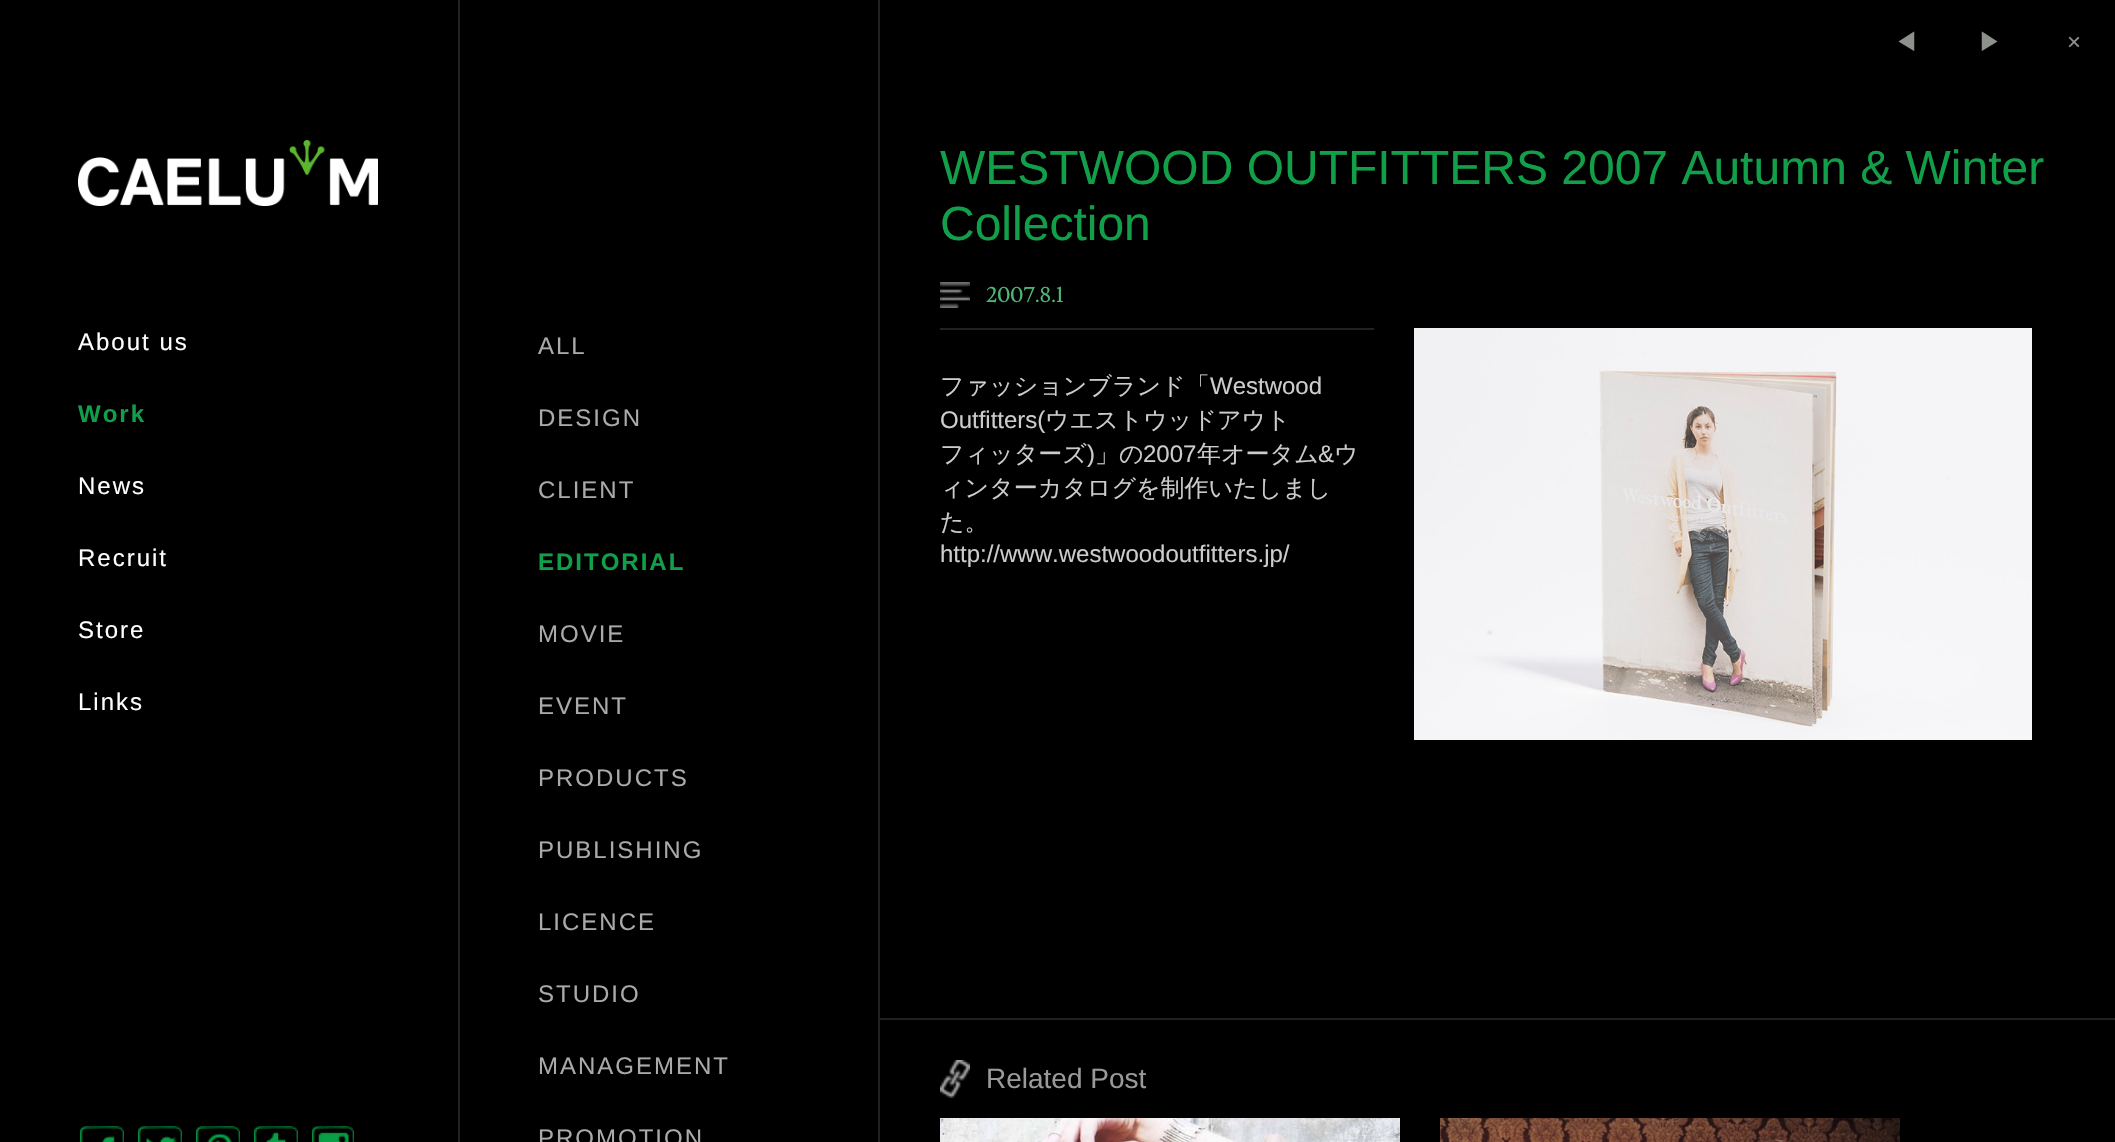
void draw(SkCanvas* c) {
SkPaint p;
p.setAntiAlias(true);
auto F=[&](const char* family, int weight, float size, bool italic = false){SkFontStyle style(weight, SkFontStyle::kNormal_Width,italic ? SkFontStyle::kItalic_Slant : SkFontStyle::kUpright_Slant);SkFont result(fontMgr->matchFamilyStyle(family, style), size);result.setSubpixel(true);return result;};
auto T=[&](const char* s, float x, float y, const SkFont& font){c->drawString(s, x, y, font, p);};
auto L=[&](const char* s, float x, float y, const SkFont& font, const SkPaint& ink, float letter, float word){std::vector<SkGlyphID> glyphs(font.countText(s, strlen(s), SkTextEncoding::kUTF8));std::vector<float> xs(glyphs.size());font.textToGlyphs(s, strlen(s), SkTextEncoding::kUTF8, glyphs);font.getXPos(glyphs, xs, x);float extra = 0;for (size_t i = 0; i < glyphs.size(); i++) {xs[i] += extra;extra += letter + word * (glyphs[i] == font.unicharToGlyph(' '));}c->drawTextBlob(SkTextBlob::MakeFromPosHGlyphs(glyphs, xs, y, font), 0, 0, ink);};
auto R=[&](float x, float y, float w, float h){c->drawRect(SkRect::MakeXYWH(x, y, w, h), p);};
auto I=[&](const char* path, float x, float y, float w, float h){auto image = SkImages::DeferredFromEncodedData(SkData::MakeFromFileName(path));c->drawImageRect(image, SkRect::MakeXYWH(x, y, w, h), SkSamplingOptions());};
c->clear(0xff000000);
p.setColor(0xff222222);
R(458,0,2,1142);
I("1.png",78,140,300,66);
auto f1 = F("Liberation Sans",400,24);
p.setColor(0xffffffff);
L("About us",78,350,f1,p,2,0);
auto f2 = F("Liberation Sans",700,24);
p.setColor(0xff129f49);
L("Work",78,422,f2,p,2,0);
p.setColor(0xffffffff);
L("News",78,494,f1,p,2,0);
L("Recruit",78,566,f1,p,2,0);
L("Store",78,638,f1,p,2,0);
L("Links",78,710,f1,p,2,0);
I("2.png",80,1126,44,16);
I("3.png",138,1126,44,16);
I("4.png",196,1126,44,16);
I("5.png",254,1126,44,16);
I("6.png",312,1126,42,16);
p.setColor(0xff222222);
R(878,0,2,1142);
p.setColor(0xffaaaaaa);
L("ALL",538,354,f1,p,2,0);
L("DESIGN",538,426,f1,p,2,0);
L("CLIENT",538,498,f1,p,2,0);
p.setColor(0xff129f49);
L("EDITORIAL",538,570,f2,p,2,0);
p.setColor(0xffaaaaaa);
L("MOVIE",538,642,f1,p,2,0);
L("EVENT",538,714,f1,p,2,0);
L("PRODUCTS",538,786,f1,p,2,0);
L("PUBLISHING",538,858,f1,p,2,0);
L("LICENCE",538,930,f1,p,2,0);
L("STUDIO",538,1002,f1,p,2,0);
L("MANAGEMENT",538,1074,f1,p,2,0);
L("PROMOTION",538,1146,f1,p,2,0);
auto f3 = F("WenQuanYi Zen Hei",500,24);
p.setColor(0xff8c918c);
T("◀",1894,50,f3);
T("▶",1978,50,f3);
T("×",2067,50,f1);
auto f4 = F("Liberation Sans",400,48);
p.setColor(0xff129f49);
T("WESTWOOD OUTFITTERS 2007 Autumn & Winter",940,184,f4);
T("Collection",940,240,f4);
I("7.png",940,282,30,26);
auto f5 = F("Lusitana",400,22);
p.setColor(0xff4db676);
T("2007.8.1",986,302,f5);
p.setColor(0xff222222);
R(940,328,434,2);
p.setColor(0xffcccccc);
T("ファッションブランド「",940,394,f3);
T("Westwood",1210,394,f1);
T("Outfitters(",940,428,f1);
T("ウエストウッドアウト",1045,428,f3);
T("フィッターズ",940,462,f3);
T(")",1087,462,f1);
T("」の",1095,462,f3);
T("2007",1143,462,f1);
T("年オータム",1197,462,f3);
T("&",1318,462,f1);
T("ウ",1334,462,f3);
T("ィンターカタログを制作いたしまし",940,496,f3);
T("た。",940,530,f3);
T("http://www.westwoodoutfitters.jp/",940,562,f1);
I("8.png",1414,328,618,412);
p.setColor(0xff222222);
R(880,1018,1235,2);
I("9.png",940,1060,30,38);
auto f6 = F("Liberation Sans",400,28);
p.setColor(0xff999999);
T("Related Post",986,1088,f6);
I("10.png",940,1118,460,24);
I("11.png",1440,1118,460,24);
}
